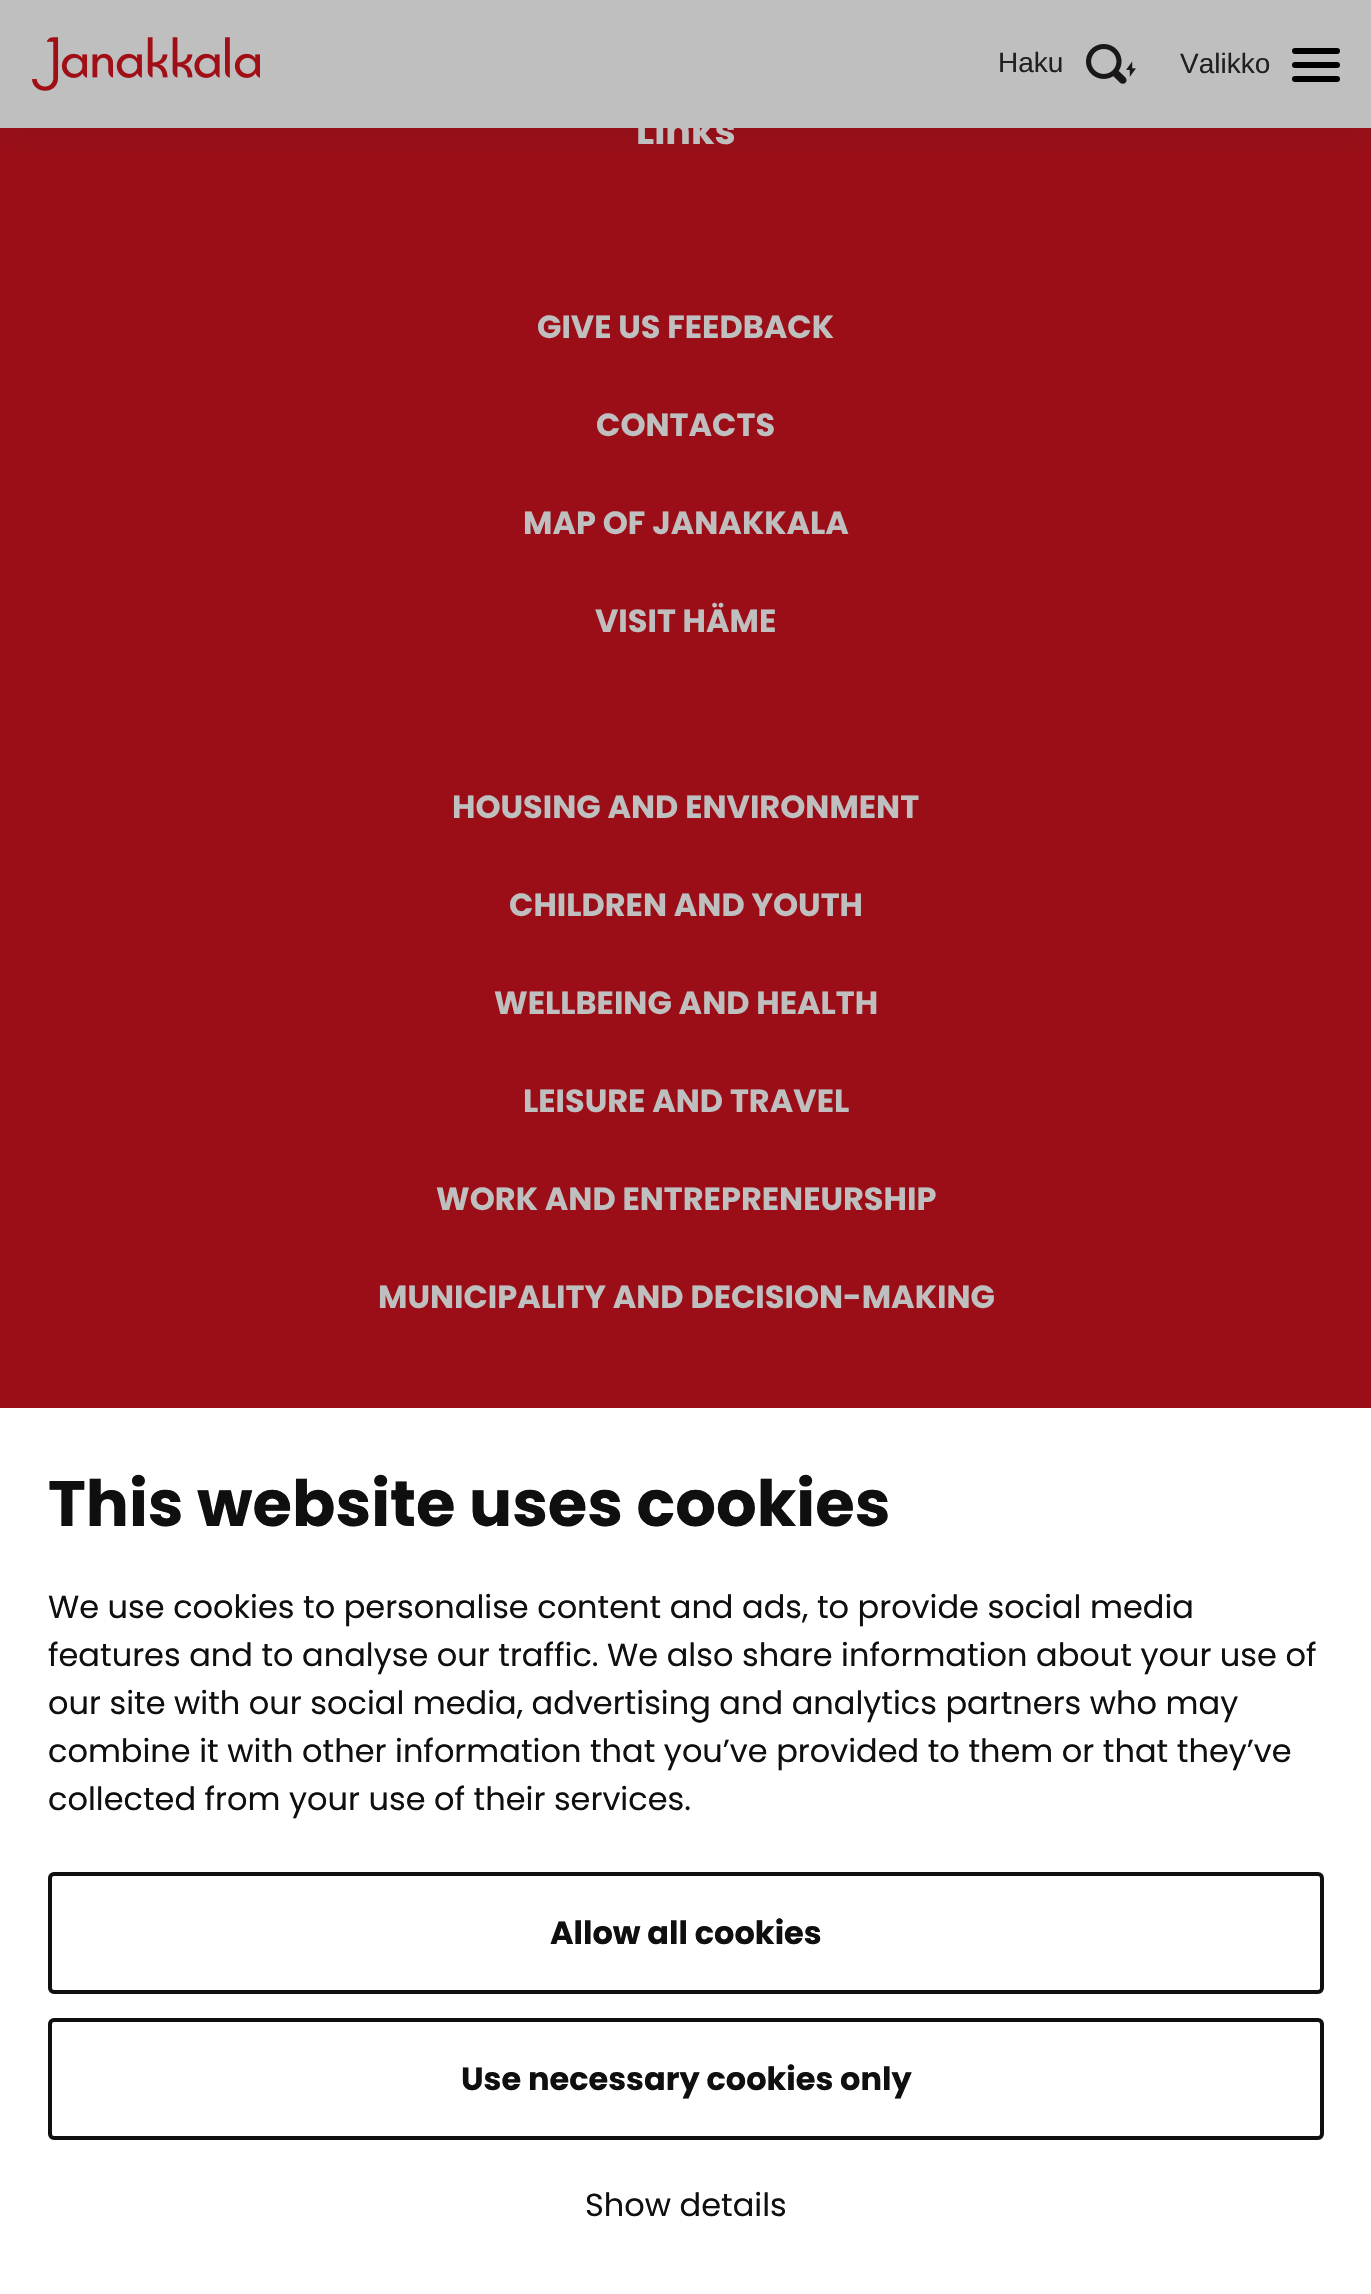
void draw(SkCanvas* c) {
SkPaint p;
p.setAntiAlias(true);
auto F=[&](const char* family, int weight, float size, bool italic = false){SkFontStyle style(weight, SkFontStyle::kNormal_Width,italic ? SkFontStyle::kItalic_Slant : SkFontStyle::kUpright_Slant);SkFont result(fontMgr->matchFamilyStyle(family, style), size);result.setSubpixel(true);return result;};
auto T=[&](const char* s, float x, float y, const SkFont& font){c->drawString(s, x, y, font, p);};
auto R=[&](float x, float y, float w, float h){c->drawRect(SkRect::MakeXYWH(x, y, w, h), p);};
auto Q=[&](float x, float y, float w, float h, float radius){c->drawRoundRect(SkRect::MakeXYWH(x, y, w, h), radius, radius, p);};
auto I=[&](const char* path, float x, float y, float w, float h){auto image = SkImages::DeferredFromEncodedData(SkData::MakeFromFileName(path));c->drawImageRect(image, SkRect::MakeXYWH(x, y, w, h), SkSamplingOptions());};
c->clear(0xff9b0e18);
p.setColor(0xffbfbfbf);
R(0,0,1371,128);
c->save();
c->clipRect(SkRect::MakeXYWH(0,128,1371,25));
p.setColor(0x1a222222);
p.setMaskFilter(SkMaskFilter::MakeBlur(kNormal_SkBlurStyle, 20));
c->drawRect(SkRect::MakeXYWH(0,8,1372,128),p);
p.setMaskFilter(nullptr);
c->restore();
I("1.png",32,37,228,54);
auto f1 = F("Liberation Sans",400,28);
p.setColor(0xff202020);
T("Haku",998,72,f1);
I("2.png",1086,44,50,40);
T("Valikko",1180,73,f1);
p.setColor(0xff000000);
Q(1292,62,48,6,3);
Q(1292,48,48,6,3);
Q(1292,76,48,6,3);
auto f2 = F("Poppins",700,38);
p.setColor(0xffbfbfbf);
T("Links",636,144,f2);
auto f3 = F("Poppins",700,32);
T("GIVE US FEEDBACK",537,338,f3);
T("CONTACTS",596,436,f3);
T("MAP OF JANAKKALA",523,534,f3);
T("VISIT HÄME",595,632,f3);
T("HOUSING AND ENVIRONMENT",452,818,f3);
T("CHILDREN AND YOUTH",509,916,f3);
T("WELLBEING AND HEALTH",494,1014,f3);
T("LEISURE AND TRAVEL",523,1112,f3);
T("WORK AND ENTREPRENEURSHIP",436,1210,f3);
T("MUNICIPALITY AND DECISION-MAKING",378,1308,f3);
p.setColor(0xffffffff);
R(0,1408,1371,886);
auto f4 = F("Poppins",700,64);
p.setColor(0xff0f0f0f);
T("This website uses cookies",48,1526,f4);
auto f5 = F("Poppins",400,32);
T("We use cookies to personalise content and ads, to provide social media",48,1618,f5);
T("features and to analyse our traffic. We also share information about your use of",48,1666,f5);
T("our site with our social media, advertising and analytics partners who may",48,1714,f5);
T("combine it with other information that you’ve provided to them or that they’ve",48,1762,f5);
T("collected from your use of their services.",48,1810,f5);
p.setStroke(true);
p.setStrokeWidth(4);
c->drawRoundRect(SkRect::MakeXYWH(50,1874,1272,118),4,4,p);
p.setStroke(false);
T("Allow all cookies",550,1944,f3);
p.setStroke(true);
c->drawRoundRect(SkRect::MakeXYWH(50,2020,1272,118),4,4,p);
p.setStroke(false);
T("Use necessary cookies only",461,2090,f3);
T("Show details",585,2216,f5);
}
